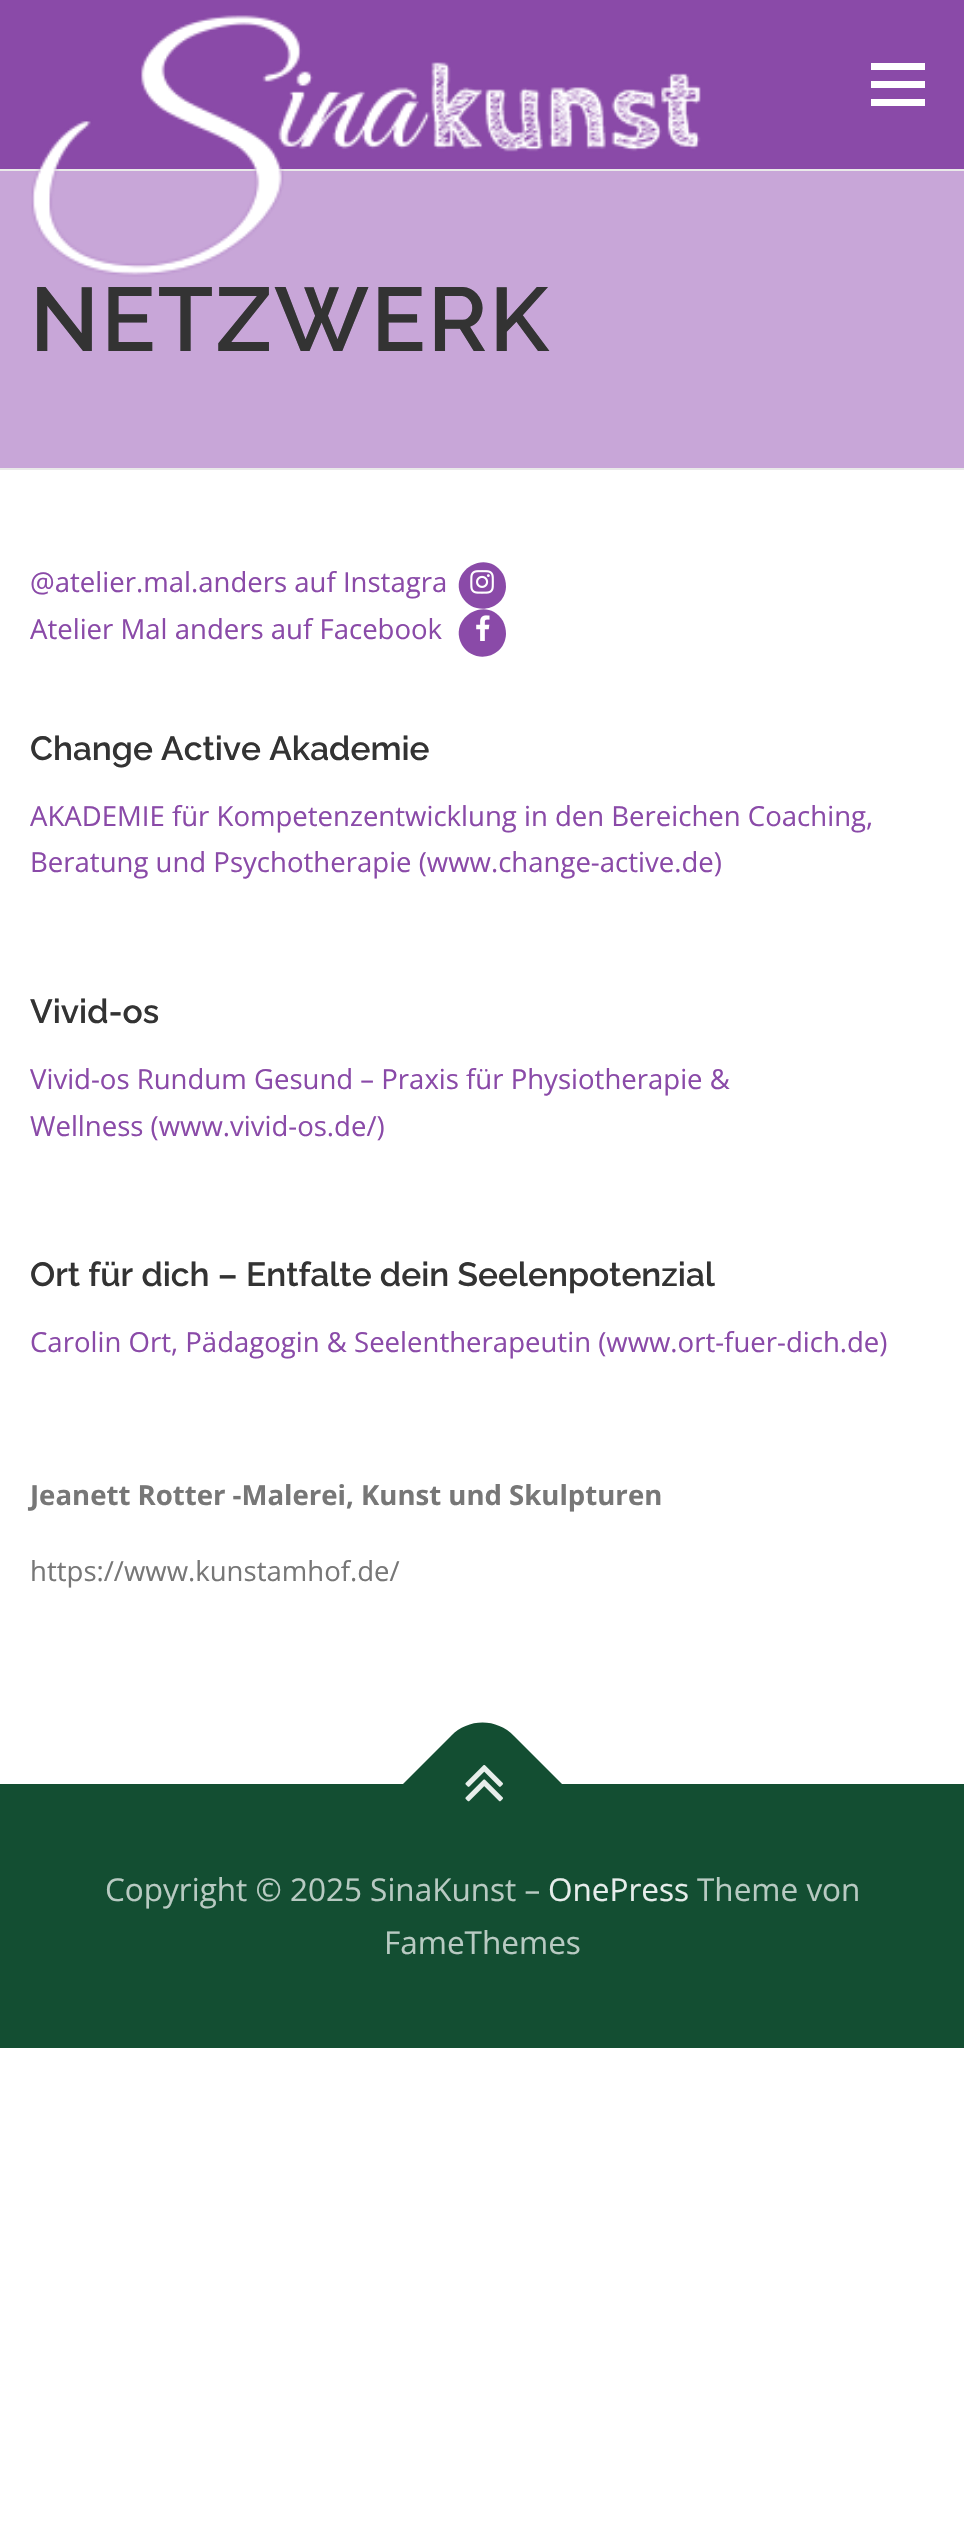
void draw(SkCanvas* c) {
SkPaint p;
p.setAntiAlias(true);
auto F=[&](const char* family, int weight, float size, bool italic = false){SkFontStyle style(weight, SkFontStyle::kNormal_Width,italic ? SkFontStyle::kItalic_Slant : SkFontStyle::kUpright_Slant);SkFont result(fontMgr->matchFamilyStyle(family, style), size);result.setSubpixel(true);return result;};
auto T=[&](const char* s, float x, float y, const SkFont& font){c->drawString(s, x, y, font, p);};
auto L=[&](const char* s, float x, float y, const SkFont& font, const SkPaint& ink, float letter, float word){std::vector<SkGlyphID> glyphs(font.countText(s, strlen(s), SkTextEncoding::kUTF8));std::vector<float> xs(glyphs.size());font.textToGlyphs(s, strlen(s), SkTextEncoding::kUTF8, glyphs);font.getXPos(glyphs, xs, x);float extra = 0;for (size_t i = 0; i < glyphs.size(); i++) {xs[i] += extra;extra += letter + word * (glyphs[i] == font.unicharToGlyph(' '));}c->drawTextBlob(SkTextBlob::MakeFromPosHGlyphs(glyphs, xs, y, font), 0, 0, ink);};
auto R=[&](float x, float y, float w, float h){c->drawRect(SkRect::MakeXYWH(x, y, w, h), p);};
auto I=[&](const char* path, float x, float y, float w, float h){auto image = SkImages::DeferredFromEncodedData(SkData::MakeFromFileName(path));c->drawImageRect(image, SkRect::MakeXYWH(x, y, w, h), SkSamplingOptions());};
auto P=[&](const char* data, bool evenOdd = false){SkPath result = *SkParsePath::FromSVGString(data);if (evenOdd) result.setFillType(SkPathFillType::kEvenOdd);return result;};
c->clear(0xffffffff);
p.setColor(0xff8a4aa8);
R(0,0,964,169);
p.setColor(0xffc8a6d8);
R(0,171,964,297);
p.setColor(0xffe9e9e9);
R(0,169,964,2);
I("1.png",31,15,670,262);
p.setColor(0xffffffff);
R(871,81,54,7);
R(871,63,54,7);
R(871,99,54,7);
p.setColor(0xffe9e9e9);
R(0,468,964,2);
auto f1 = F("Raleway",600,90);
p.setColor(0xff333333);
L("NETZWERK",30,351,f1,p,2.25,0);
auto f2 = F("Open Sans",400,27.55);
p.setColor(0xff8a4aa8);
T("@atelier.mal.anders auf Instagra",30,592,f2);
c->drawPath(P("M503 574c2 4 3 8 3 13c-1 23-32 30-44 10c-15-26 25-50 41-23z"),p);
I("2.png",470,570,24,24);
c->drawPath(P("M503 621c2 4 3 9 3 13c-1 24-32 31-44 11c-15-27 25-51 41-24z"),p);
T("Atelier Mal anders auf Facebook",30,639,f2);
I("3.png",476,615,14,26);
auto f3 = F("Raleway",600,33.5);
p.setColor(0xff333333);
T("Change Active Akademie",30,760,f3);
p.setColor(0xff8a4aa8);
T("AKADEMIE für Kompetenzentwicklung in den Bereichen Coaching,",30,826,f2);
T("Beratung und Psychotherapie (www.change-active.de)",30,872,f2);
p.setColor(0xff333333);
T("Vivid-os",30,1023,f3);
p.setColor(0xff8a4aa8);
T("Vivid-os Rundum Gesund – Praxis für Physiotherapie &",30,1089,f2);
T("Wellness (www.vivid-os.de/)",30,1136,f2);
p.setColor(0xff333333);
T("Ort für dich – Entfalte dein Seelenpotenzial",30,1286,f3);
p.setColor(0xff8a4aa8);
T("Carolin Ort, Pädagogin & Seelentherapeutin (www.ort-fuer-dich.de)",30,1352,f2);
auto f4 = F("Open Sans",700,27.55);
p.setColor(0xff777777);
T("Jeanett Rotter -Malerei, Kunst und Skulpturen",30,1505,f4);
T("https://www.kunstamhof.de/",30,1581,f2);
p.setColor(0xff134e32);
R(0,1784,964,264);
c->drawPath(P("M403 1784l48-48c17-18 46-18 63 0l48 48l-79 79z"),p);
I("4.png",465,1765,38,37);
auto f5 = F("Open Sans",400,31.5);
p.setColor(0xffb8cac2);
T("Copyright © 2025 SinaKunst –",105,1901,f5);
p.setColor(0xffe7edeb);
T("OnePress",548,1901,f5);
p.setColor(0xffb8cac2);
T("Theme von",697,1901,f5);
T("FameThemes",384,1954,f5);
}
